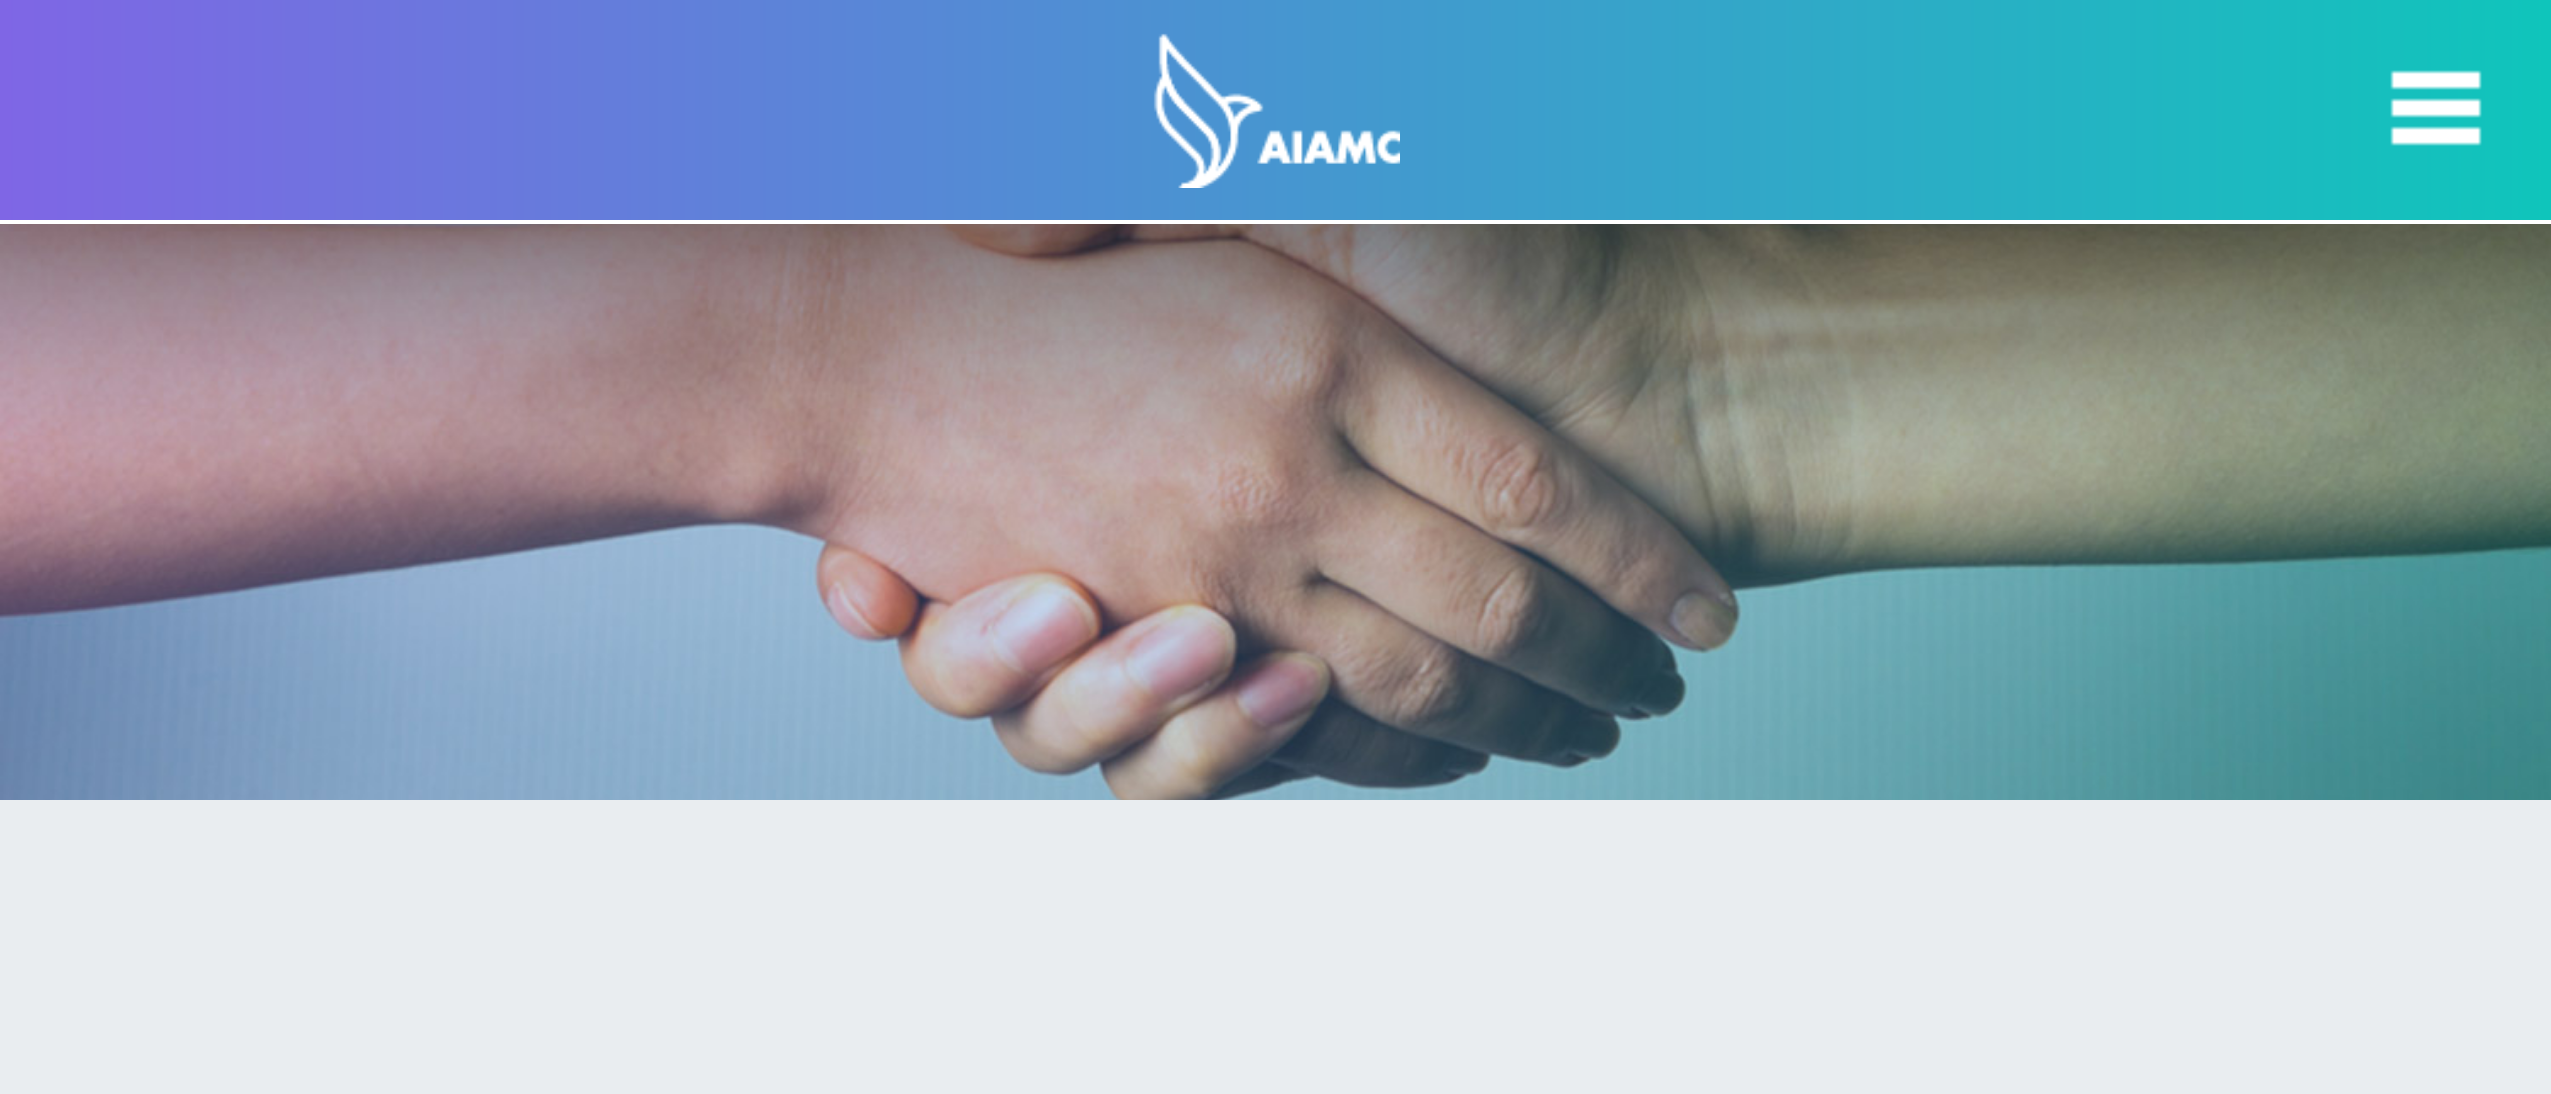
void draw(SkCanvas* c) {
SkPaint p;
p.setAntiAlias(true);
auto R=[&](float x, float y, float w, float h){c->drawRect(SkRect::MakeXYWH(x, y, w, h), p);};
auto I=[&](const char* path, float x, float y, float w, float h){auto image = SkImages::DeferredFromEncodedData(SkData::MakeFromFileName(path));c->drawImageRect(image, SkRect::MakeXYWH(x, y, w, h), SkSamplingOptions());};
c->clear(0xffe9edf0);
{
const SkColor colors[] = {0xff7f66e5,0xff0fc5bb};
const float stops[] = {0,1};
const SkPoint ends[] = {{0,110}, {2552,110}};
p.setShader(SkGradientShader::MakeLinear(ends, colors, stops, 2, SkTileMode::kClamp));
p.setAlpha(255);
}
R(0,0,2551,220);
p.setShader(nullptr);
p.setColor(0xffffffff);
R(0,220,2551,4);
I("1.png",1153,33,247,155);
I("2.png",2390,70,92,76);
I("3.png",0,224,2551,576);
}
